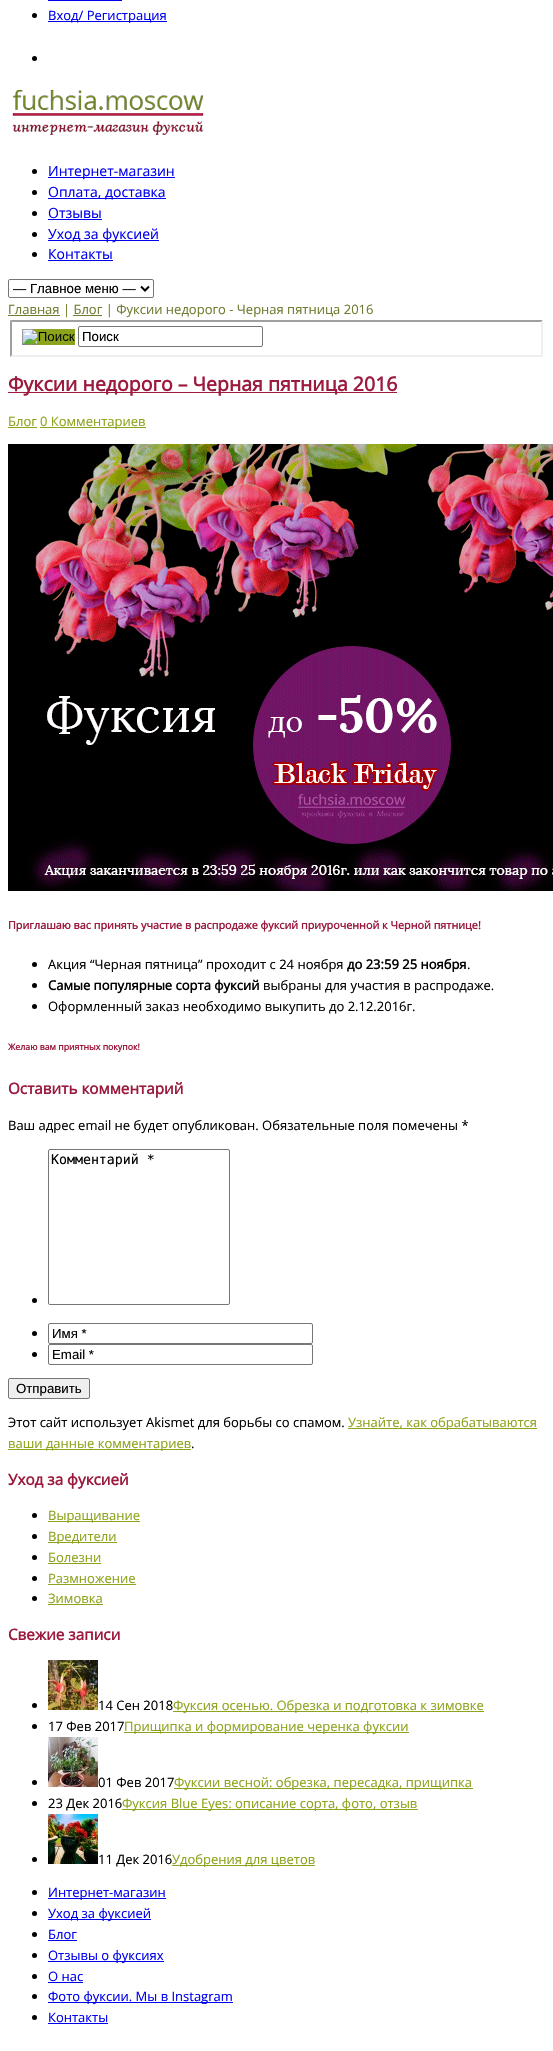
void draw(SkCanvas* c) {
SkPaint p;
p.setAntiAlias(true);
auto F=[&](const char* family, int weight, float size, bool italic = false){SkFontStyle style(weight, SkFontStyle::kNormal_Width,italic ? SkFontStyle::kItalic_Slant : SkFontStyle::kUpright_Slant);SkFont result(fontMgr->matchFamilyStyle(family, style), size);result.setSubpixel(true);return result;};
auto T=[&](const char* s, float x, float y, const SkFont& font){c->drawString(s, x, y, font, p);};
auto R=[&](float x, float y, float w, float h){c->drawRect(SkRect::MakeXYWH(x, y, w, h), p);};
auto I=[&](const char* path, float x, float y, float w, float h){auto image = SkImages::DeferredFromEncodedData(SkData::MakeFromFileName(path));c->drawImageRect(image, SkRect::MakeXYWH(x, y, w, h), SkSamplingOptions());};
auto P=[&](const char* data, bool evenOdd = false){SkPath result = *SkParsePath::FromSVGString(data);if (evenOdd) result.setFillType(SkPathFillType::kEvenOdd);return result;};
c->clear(0xffffffff);
p.setColor(0xff0000ee);
R(48,0,74,1);
p.setColor(0xff000000);
c->drawCircle(34.5,15.5,2.5,p);
p.setColor(0xff0000ee);
R(48,21,119,1);
auto f1 = F("Open Sans",400,13);
T("Вход/ Регистрация",48,20,f1);
p.setColor(0xff000000);
c->drawCircle(34.5,58.5,2.5,p);
I("1.png",12,89,192,46);
c->drawCircle(34.5,171.5,2.5,p);
p.setColor(0xff0000ee);
R(48,177,127,1);
auto f2 = F("Open Sans",400,14);
T("Интернет-магазин",48,176,f2);
p.setColor(0xff000000);
c->drawCircle(34.5,192.5,2.5,p);
p.setColor(0xff0000ee);
R(48,198,118,1);
T("Оплата, доставка",48,197,f2);
p.setColor(0xff000000);
c->drawCircle(34.5,213.5,2.5,p);
p.setColor(0xff0000ee);
T("Отзывы",48,218,f2);
R(48,219,54,1);
p.setColor(0xff000000);
c->drawCircle(34.5,234.5,2.5,p);
p.setColor(0xff0000ee);
R(48,240,111,1);
T("Уход за фуксией",48,239,f2);
p.setColor(0xff000000);
c->drawCircle(34.5,254.5,2.5,p);
p.setColor(0xff0000ee);
T("Контакты",48,259,f2);
R(48,260,65,1);
p.setStroke(true);
p.setStrokeWidth(1);
p.setColor(0xff767676);
c->drawRoundRect(SkRect::MakeXYWH(8.5,279.5,145,18),1.5,1.5,p);
p.setStrokeWidth(2);
p.setColor(0xff000000);
c->drawPath(P("M141 286.5l4 4l4-4"),p);
auto f3 = F("Liberation Sans",400,13.25);
p.setStroke(false);
T("— Главное меню —",13,293,f3);
p.setColor(0xff6d7c2f);
R(8,315,52,1);
T("Главная | Блог | Фуксии недорого - Черная пятница 2016",8,314,f1);
R(73,315,29,1);
p.setColor(0xff9f9f9f);
c->drawPath(P("M10 320h533l-2 2h-529z"),p);
p.setColor(0xffefefef);
c->drawPath(P("M543 320v37l-2-2v-33z"),p);
c->drawPath(P("M543 357h-533l2-2h529z"),p);
p.setColor(0xff9f9f9f);
c->drawPath(P("M10 357v-37l2 2v33z"),p);
p.setColor(0xff8ba41c);
R(28,329,47,16);
I("2.png",22,329,53,16);
p.setStroke(true);
p.setStrokeWidth(1);
p.setColor(0xff767676);
c->drawRoundRect(SkRect::MakeXYWH(78.5,326.5,184,20),1.5,1.5,p);
p.setStroke(false);
p.setColor(0xff000000);
T("Поиск",82,341,f3);
p.setColor(0xff9b1a3d);
R(8,392,389,1);
auto f4 = F("Open Sans",700,19.5);
T("Фуксии недорого – Черная пятница 2016",8,391,f4);
p.setColor(0xff8ba41c);
T("Блог",8,426,f1);
R(8,427,29,1);
R(40,427,106,1);
T("0 Комментариев",40,426,f1);
I("3.png",8,444,545,447);
auto f5 = F("Open Sans",700,10.8);
p.setColor(0xff9b1a3d);
T("Приглашаю вас принять участие в распродаже фуксий приуроченной к Черной пятнице!",8,929,f5);
p.setColor(0xff000000);
c->drawCircle(34.5,964.5,2.5,p);
T("Акция “Черная пятница” проходит с 24 ноября",48,969,f1);
auto f6 = F("Open Sans",700,13);
T("до 23:59 25 ноября",347,969,f6);
T(".",467,969,f1);
c->drawCircle(34.5,985.5,2.5,p);
T("Самые популярные сорта фуксий",48,990,f6);
T("выбраны для участия в распродаже.",263,990,f1);
c->drawCircle(34.5,1006.5,2.5,p);
T("Оформленный заказ необходимо выкупить до 2.12.2016г.",48,1011,f1);
auto f7 = F("Open Sans",700,8.75);
p.setColor(0xff9b1a3d);
T("Желаю вам приятных покупок!",8,1050,f7);
auto f8 = F("Open Sans",700,15.25);
T("Оставить комментарий",8,1094,f8);
p.setColor(0xff000000);
T("Ваш адрес email не будет опубликован. Обязательные поля помечены *",8,1130,f1);
p.setStroke(true);
p.setColor(0xff767676);
c->drawRoundRect(SkRect::MakeXYWH(48.5,1149.5,181,155),1.5,1.5,p);
auto f9 = F("DejaVu Sans Mono",400,13.25);
p.setStroke(false);
p.setColor(0xff000000);
T("Комментарий *",51,1164,f9);
c->drawCircle(34.5,1300.5,2.5,p);
c->drawCircle(34.5,1333.5,2.5,p);
p.setStroke(true);
p.setColor(0xff767676);
c->drawRoundRect(SkRect::MakeXYWH(48.5,1323.5,264,20),1.5,1.5,p);
p.setStroke(false);
p.setColor(0xff000000);
T("Имя *",52,1338,f3);
c->drawCircle(34.5,1354.5,2.5,p);
p.setStroke(true);
p.setColor(0xff767676);
c->drawRoundRect(SkRect::MakeXYWH(48.5,1344.5,264,20),1.5,1.5,p);
p.setStroke(false);
p.setColor(0xff000000);
T("Email *",52,1359,f3);
p.setColor(0xffefefef);
c->drawRoundRect(SkRect::MakeXYWH(8.5,1378.5,81,20),1.5,1.5,p);
p.setStroke(true);
p.setColor(0xff767676);
c->drawRoundRect(SkRect::MakeXYWH(8.5,1378.5,81,20),1.5,1.5,p);
p.setStroke(false);
p.setColor(0xff000000);
T("Отправить",16,1393,f3);
T("Этот сайт использует Akismet для борьбы со спамом.",8,1427,f1);
p.setColor(0xff8ba41c);
R(348,1428,189,1);
T("Узнайте, как обрабатываются",348,1427,f1);
R(8,1449,183,1);
T("ваши данные комментариев",8,1448,f1);
p.setColor(0xff000000);
T(".",191,1448,f1);
p.setColor(0xff9b1a3d);
T("Уход за фуксией",8,1485,f8);
p.setColor(0xff000000);
c->drawCircle(34.5,1515.5,2.5,p);
p.setColor(0xff8ba41c);
R(48,1521,92,1);
T("Выращивание",48,1520,f1);
p.setColor(0xff000000);
c->drawCircle(34.5,1536.5,2.5,p);
p.setColor(0xff8ba41c);
R(48,1542,69,1);
T("Вредители",48,1541,f1);
p.setColor(0xff000000);
c->drawCircle(34.5,1557.5,2.5,p);
p.setColor(0xff8ba41c);
T("Болезни",48,1562,f1);
R(48,1563,53,1);
p.setColor(0xff000000);
c->drawCircle(34.5,1578.5,2.5,p);
p.setColor(0xff8ba41c);
T("Размножение",48,1583,f1);
R(48,1584,88,1);
p.setColor(0xff000000);
c->drawCircle(34.5,1598.5,2.5,p);
p.setColor(0xff8ba41c);
T("Зимовка",48,1603,f1);
R(48,1604,55,1);
p.setColor(0xff9b1a3d);
T("Свежие записи",8,1640,f8);
p.setColor(0xff000000);
c->drawCircle(34.5,1705.5,2.5,p);
I("4.png",48,1660,50,50);
T("14 Сен 2018",98,1710,f1);
p.setColor(0xff8ba41c);
R(173,1711,311,1);
T("Фуксия осенью. Обрезка и подготовка к зимовке",173,1710,f1);
p.setColor(0xff000000);
c->drawCircle(34.5,1726.5,2.5,p);
T("17 Фев 2017",48,1731,f1);
p.setColor(0xff8ba41c);
R(124,1732,285,1);
T("Прищипка и формирование черенка фуксии",124,1731,f1);
p.setColor(0xff000000);
c->drawCircle(34.5,1782.5,2.5,p);
I("5.png",48,1737,50,50);
T("01 Фев 2017",98,1787,f1);
p.setColor(0xff8ba41c);
R(174,1788,299,1);
T("Фуксии весной: обрезка, пересадка, прищипка",174,1787,f1);
p.setColor(0xff000000);
c->drawCircle(34.5,1803.5,2.5,p);
T("23 Дек 2016",48,1808,f1);
p.setColor(0xff8ba41c);
R(122,1809,296,1);
T("Фуксия Blue Eyes: описание сорта, фото, отзыв",122,1808,f1);
p.setColor(0xff000000);
c->drawCircle(34.5,1859.5,2.5,p);
I("6.png",48,1814,50,50);
T("11 Дек 2016",98,1864,f1);
p.setColor(0xff8ba41c);
R(172,1865,143,1);
T("Удобрения для цветов",172,1864,f1);
p.setColor(0xff000000);
c->drawCircle(34.5,1892.5,2.5,p);
p.setColor(0xff0000ee);
R(48,1898,118,1);
T("Интернет-магазин",48,1897,f1);
p.setColor(0xff000000);
c->drawCircle(34.5,1913.5,2.5,p);
p.setColor(0xff0000ee);
R(48,1919,103,1);
T("Уход за фуксией",48,1918,f1);
p.setColor(0xff000000);
c->drawCircle(34.5,1934.5,2.5,p);
p.setColor(0xff0000ee);
T("Блог",48,1939,f1);
R(48,1940,29,1);
p.setColor(0xff000000);
c->drawCircle(34.5,1955.5,2.5,p);
p.setColor(0xff0000ee);
R(48,1961,116,1);
T("Отзывы о фуксиях",48,1960,f1);
p.setColor(0xff000000);
c->drawCircle(34.5,1976.5,2.5,p);
p.setColor(0xff0000ee);
T("О нас",48,1981,f1);
R(48,1982,35,1);
p.setColor(0xff000000);
c->drawCircle(34.5,1996.5,2.5,p);
p.setColor(0xff0000ee);
R(48,2002,185,1);
T("Фото фуксии. Мы в Instagram",48,2001,f1);
p.setColor(0xff000000);
c->drawCircle(34.5,2017.5,2.5,p);
p.setColor(0xff0000ee);
T("Контакты",48,2022,f1);
R(48,2023,60,1);
}
